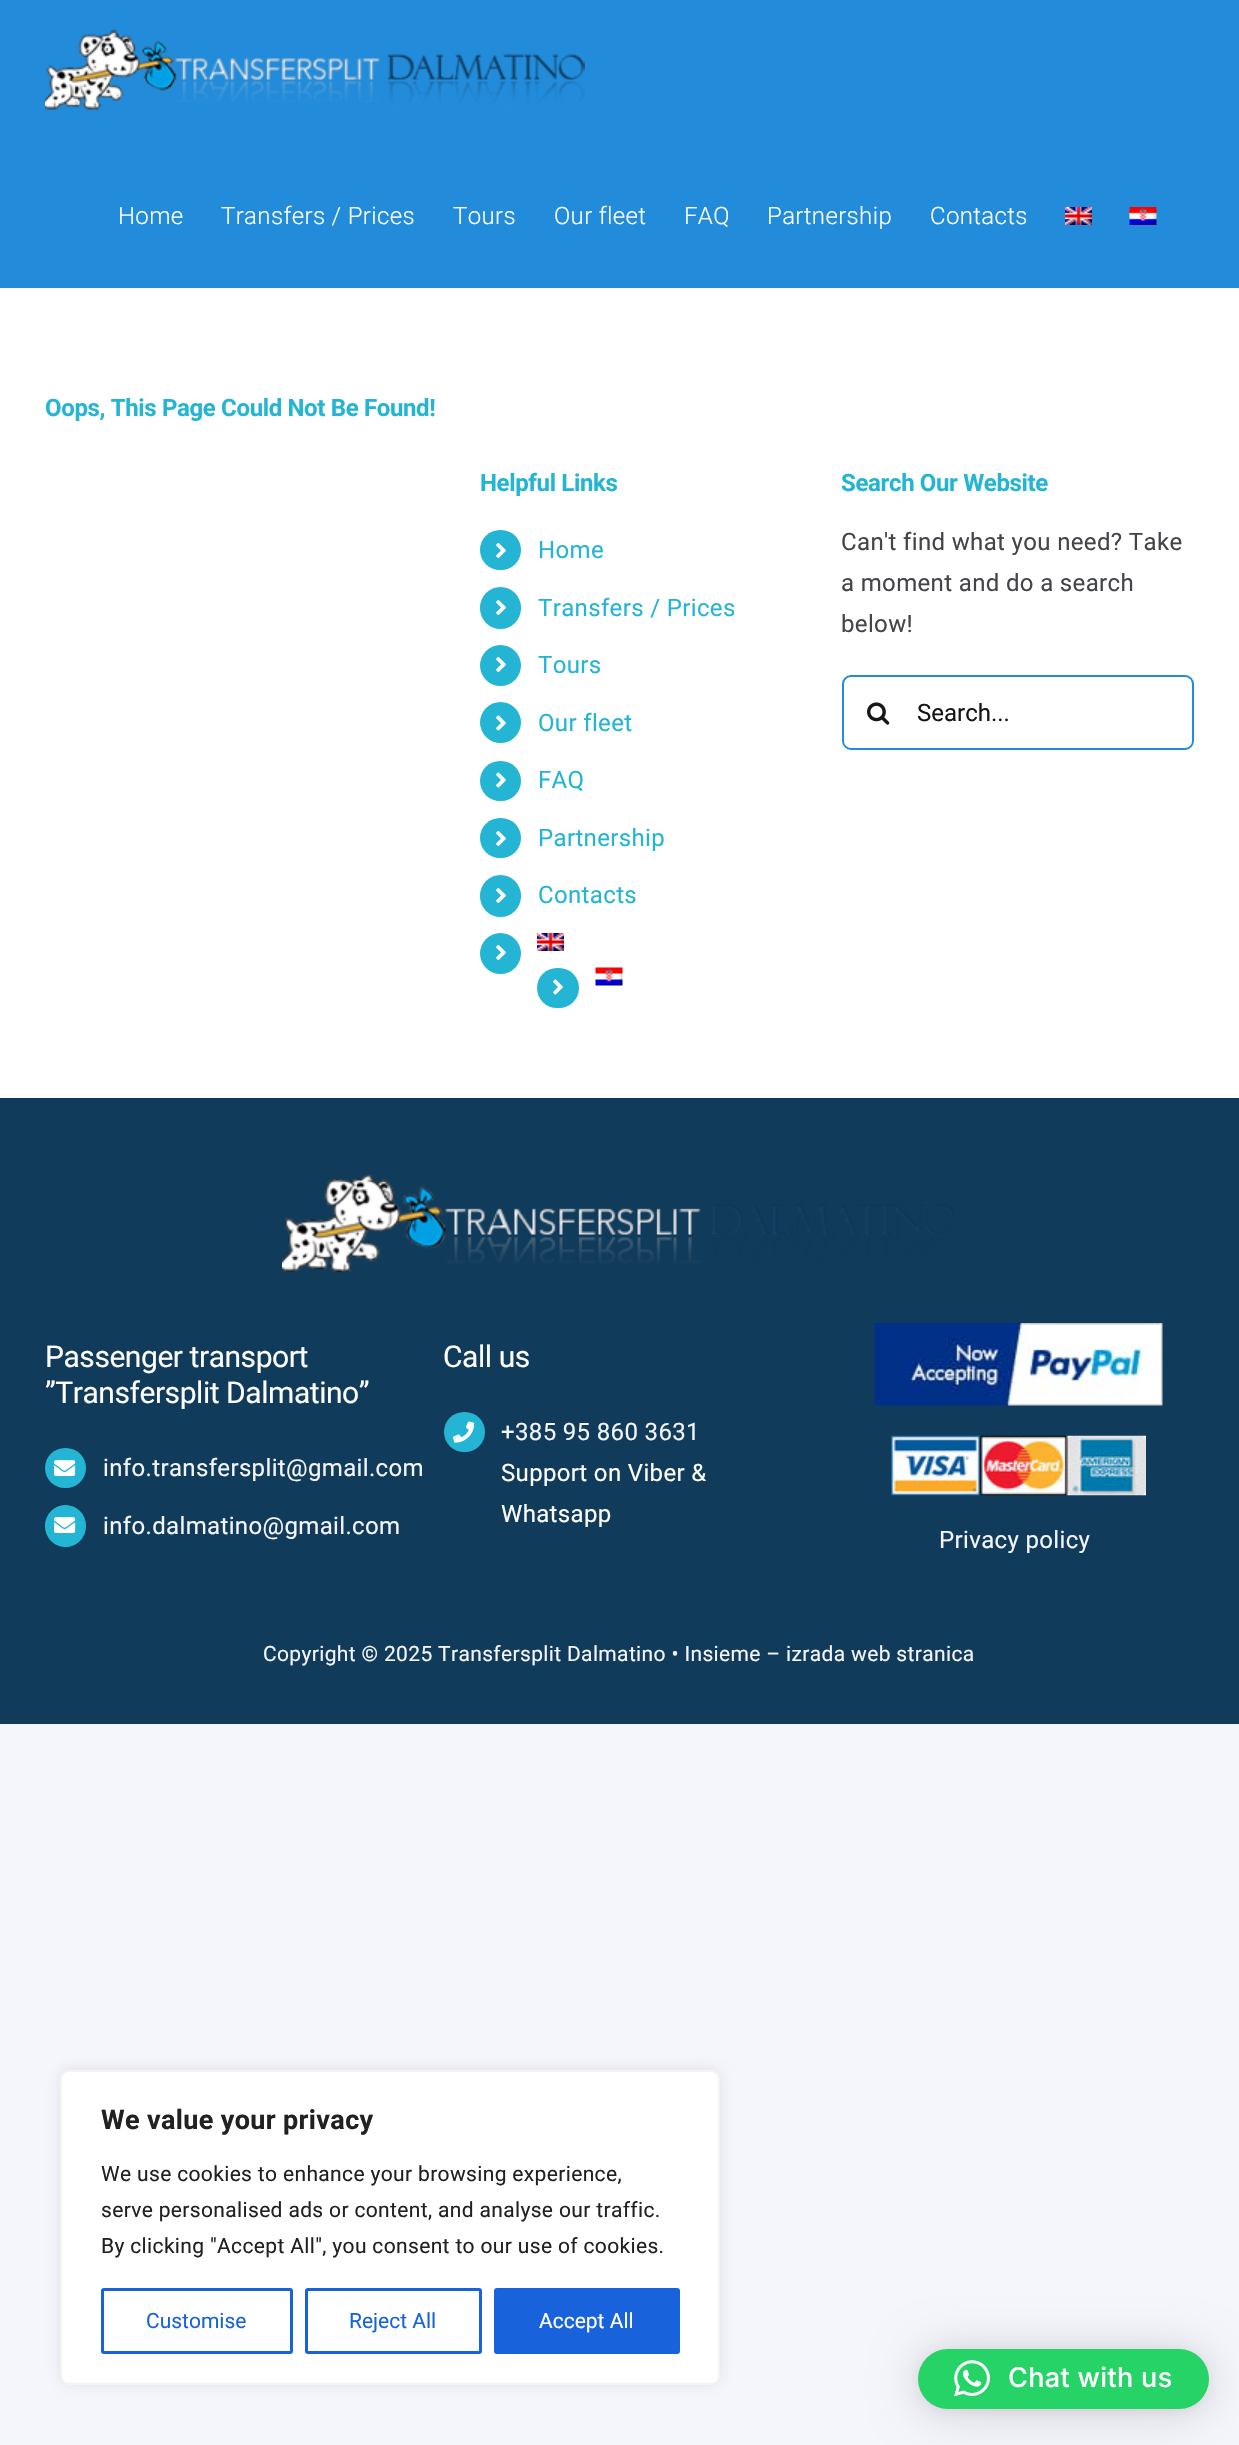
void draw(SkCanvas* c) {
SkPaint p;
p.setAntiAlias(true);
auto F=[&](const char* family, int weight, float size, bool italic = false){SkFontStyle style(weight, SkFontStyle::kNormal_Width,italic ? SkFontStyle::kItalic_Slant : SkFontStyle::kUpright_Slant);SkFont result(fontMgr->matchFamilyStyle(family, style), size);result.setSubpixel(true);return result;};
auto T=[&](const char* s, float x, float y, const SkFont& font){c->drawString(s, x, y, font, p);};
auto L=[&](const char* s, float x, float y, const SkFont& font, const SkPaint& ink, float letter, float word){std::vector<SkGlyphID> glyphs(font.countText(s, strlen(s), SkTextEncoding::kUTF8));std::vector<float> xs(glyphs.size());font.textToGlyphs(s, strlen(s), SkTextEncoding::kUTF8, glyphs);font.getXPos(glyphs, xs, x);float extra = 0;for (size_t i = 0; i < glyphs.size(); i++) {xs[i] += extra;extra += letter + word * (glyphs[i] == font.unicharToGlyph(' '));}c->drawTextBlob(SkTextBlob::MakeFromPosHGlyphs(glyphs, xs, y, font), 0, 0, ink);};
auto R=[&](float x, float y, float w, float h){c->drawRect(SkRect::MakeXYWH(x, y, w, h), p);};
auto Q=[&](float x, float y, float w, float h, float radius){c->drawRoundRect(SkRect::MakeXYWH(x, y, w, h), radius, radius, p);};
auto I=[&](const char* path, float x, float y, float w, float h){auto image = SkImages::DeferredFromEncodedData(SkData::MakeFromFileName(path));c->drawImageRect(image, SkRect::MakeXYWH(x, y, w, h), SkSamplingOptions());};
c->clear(0xfff5f6fc);
p.setColor(0xffffffff);
R(0,288,1239,810);
p.setColor(0xff228cdb);
R(0,0,1239,288);
I("1.png",45,29,540,81);
auto f1 = F("Roboto",300,24);
p.setColor(0xffffffff);
L("Home",118,224,f1,p,.35,0);
L("Transfers / Prices",221,224,f1,p,.35,0);
L("Tours",453,224,f1,p,.35,0);
L("Our fleet",554,224,f1,p,.35,0);
L("FAQ",684,224,f1,p,.35,0);
L("Partnership",767,224,f1,p,.35,0);
L("Contacts",930,224,f1,p,.35,0);
I("2.png",1065,207,27,18);
I("3.png",1129,207,28,18);
auto f2 = F("Roboto",700,24);
p.setColor(0xff23b5d3);
L("Oops, This Page Could Not Be Found!",45,416,f2,p,-.35,0);
L("Helpful Links",480,491,f2,p,-.35,0);
Q(480,530,41,40,20);
I("4.png",496,543,10,15);
auto f3 = F("Roboto",400,24);
L("Home",538,558,f3,p,.35,0);
Q(480,587,41,42,20.5);
I("4.png",496,600,10,15);
L("Transfers / Prices",538,616,f3,p,.35,0);
c->drawCircle(500.5,665.5,20.5,p);
I("4.png",496,657,10,15);
L("Tours",538,673,f3,p,.35,0);
c->drawCircle(500.5,722.5,20.5,p);
I("5.png",496,715,10,16);
L("Our fleet",538,731,f3,p,.35,0);
Q(480,761,41,40,20);
I("5.png",496,772,10,16);
L("FAQ",538,788,f3,p,.35,0);
Q(480,818,41,40,20);
I("4.png",496,831,10,15);
L("Partnership",538,846,f3,p,.35,0);
Q(480,875,41,42,20.5);
I("4.png",496,888,10,15);
L("Contacts",538,903,f3,p,.35,0);
c->drawCircle(500.5,953.5,20.5,p);
I("4.png",496,945,10,15);
I("2.png",537,933,27,18);
Q(537,968,42,40,20);
I("5.png",553,979,10,16);
I("6.png",595,967,28,19);
L("Search Our Website",841,491,f2,p,-.35,0);
p.setColor(0xff434549);
L("Can't find what you need? Take",841,550,f3,p,.35,0);
L("a moment and do a search",841,591,f3,p,.35,0);
L("below!",841,632,f3,p,.35,0);
p.setStroke(true);
p.setStrokeWidth(2);
p.setColor(0xff228cdb);
c->drawRoundRect(SkRect::MakeXYWH(843,676,350,73),8,8,p);
I("7.png",867,702,23,23);
p.setStroke(false);
p.setColor(0xff141617);
T("Search...",917,721,f3);
p.setColor(0xff103b5b);
R(0,1098,1239,626);
I("8.png",282,1174,672,99);
auto f4 = F("Roboto",400,30);
p.setColor(0xffffffff);
L("Passenger transport",45,1367,f4,p,-.45,0);
L("”Transfersplit Dalmatino”",45,1403,f4,p,-.45,0);
p.setColor(0xff23b5d3);
Q(45,1448,41,40,20);
I("9.png",54,1460,22,16);
p.setColor(0xfff5f6fc);
L("info.transfersplit@gmail.com",103,1476,f3,p,.35,0);
p.setColor(0xff23b5d3);
Q(45,1505,41,42,20.5);
I("9.png",54,1517,22,16);
p.setColor(0xfff5f6fc);
L("info.dalmatino@gmail.com",103,1534,f3,p,.35,0);
p.setColor(0xffffffff);
L("Call us",443,1367,f4,p,-.45,0);
p.setColor(0xff23b5d3);
Q(444,1412,41,40,20);
I("10.png",453,1421,22,22);
p.setColor(0xfff5f6fc);
L("+385 95 860 3631",501,1440,f3,p,.35,0);
p.setColor(0xffffffff);
L("Support on Viber &",501,1481,f3,p,.35,0);
L("Whatsapp",501,1522,f3,p,.35,0);
I("11.png",874,1323,289,83);
I("12.png",891,1435,255,61);
p.setColor(0xfff5f6fc);
L("Privacy policy",939,1548,f3,p,.35,0);
auto f5 = F("Roboto",400,21);
L("Copyright © 2025 Transfersplit Dalmatino • Insieme – izrada web stranica",263,1661,f5,p,.35,0);
p.setColor(0x4dacabab);
p.setMaskFilter(SkMaskFilter::MakeBlur(kNormal_SkBlurStyle, 7.5));
c->drawRoundRect(SkRect::MakeXYWH(60,2069,660,315),9,9,p);
p.setMaskFilter(nullptr);
p.setColor(0xffffffff);
c->drawRoundRect(SkRect::MakeXYWH(61,2071,658,313),8,8,p);
p.setStroke(true);
p.setColor(0xfff4f4f4);
c->drawRoundRect(SkRect::MakeXYWH(61,2071,658,313),8,8,p);
auto f6 = F("Roboto",700,27);
p.setStroke(false);
p.setColor(0xff212121);
L("We value your privacy",101,2129,f6,p,.35,0);
L("We use cookies to enhance your browsing experience,",101,2181,f5,p,.35,0);
L("serve personalised ads or content, and analyse our traffic.",101,2217,f5,p,.35,0);
L("By clicking \"Accept All\", you consent to our use of cookies.",101,2253,f5,p,.35,0);
p.setStroke(true);
p.setStrokeWidth(3);
p.setColor(0xff1863dc);
c->drawRoundRect(SkRect::MakeXYWH(102.5,2289.5,189,63),1.5,1.5,p);
p.setStroke(false);
T("Customise",146,2328,f5);
p.setStroke(true);
c->drawRoundRect(SkRect::MakeXYWH(306.5,2289.5,174,63),1.5,1.5,p);
p.setStroke(false);
T("Reject All",349,2328,f5);
c->drawRoundRect(SkRect::MakeXYWH(495.5,2289.5,183,63),1.5,1.5,p);
p.setStroke(true);
c->drawRoundRect(SkRect::MakeXYWH(495.5,2289.5,183,63),1.5,1.5,p);
p.setStroke(false);
p.setColor(0xffffffff);
T("Accept All",539,2328,f5);
p.setColor(0x29000000);
p.setMaskFilter(SkMaskFilter::MakeBlur(kNormal_SkBlurStyle, 24));
c->drawRoundRect(SkRect::MakeXYWH(918,2352,291,60),30,30,p);
p.setMaskFilter(nullptr);
p.setColor(0x0f000000);
p.setMaskFilter(SkMaskFilter::MakeBlur(kNormal_SkBlurStyle, 4.5));
c->drawRoundRect(SkRect::MakeXYWH(918,2351,291,60),30,30,p);
p.setMaskFilter(nullptr);
p.setColor(0xff25d366);
Q(918,2349,291,60,30);
I("13.png",954,2360,36,37);
auto f7 = F("Inter",500,27);
p.setColor(0xffffffff);
L("Chat with us",1008,2387,f7,p,.35,0);
}
